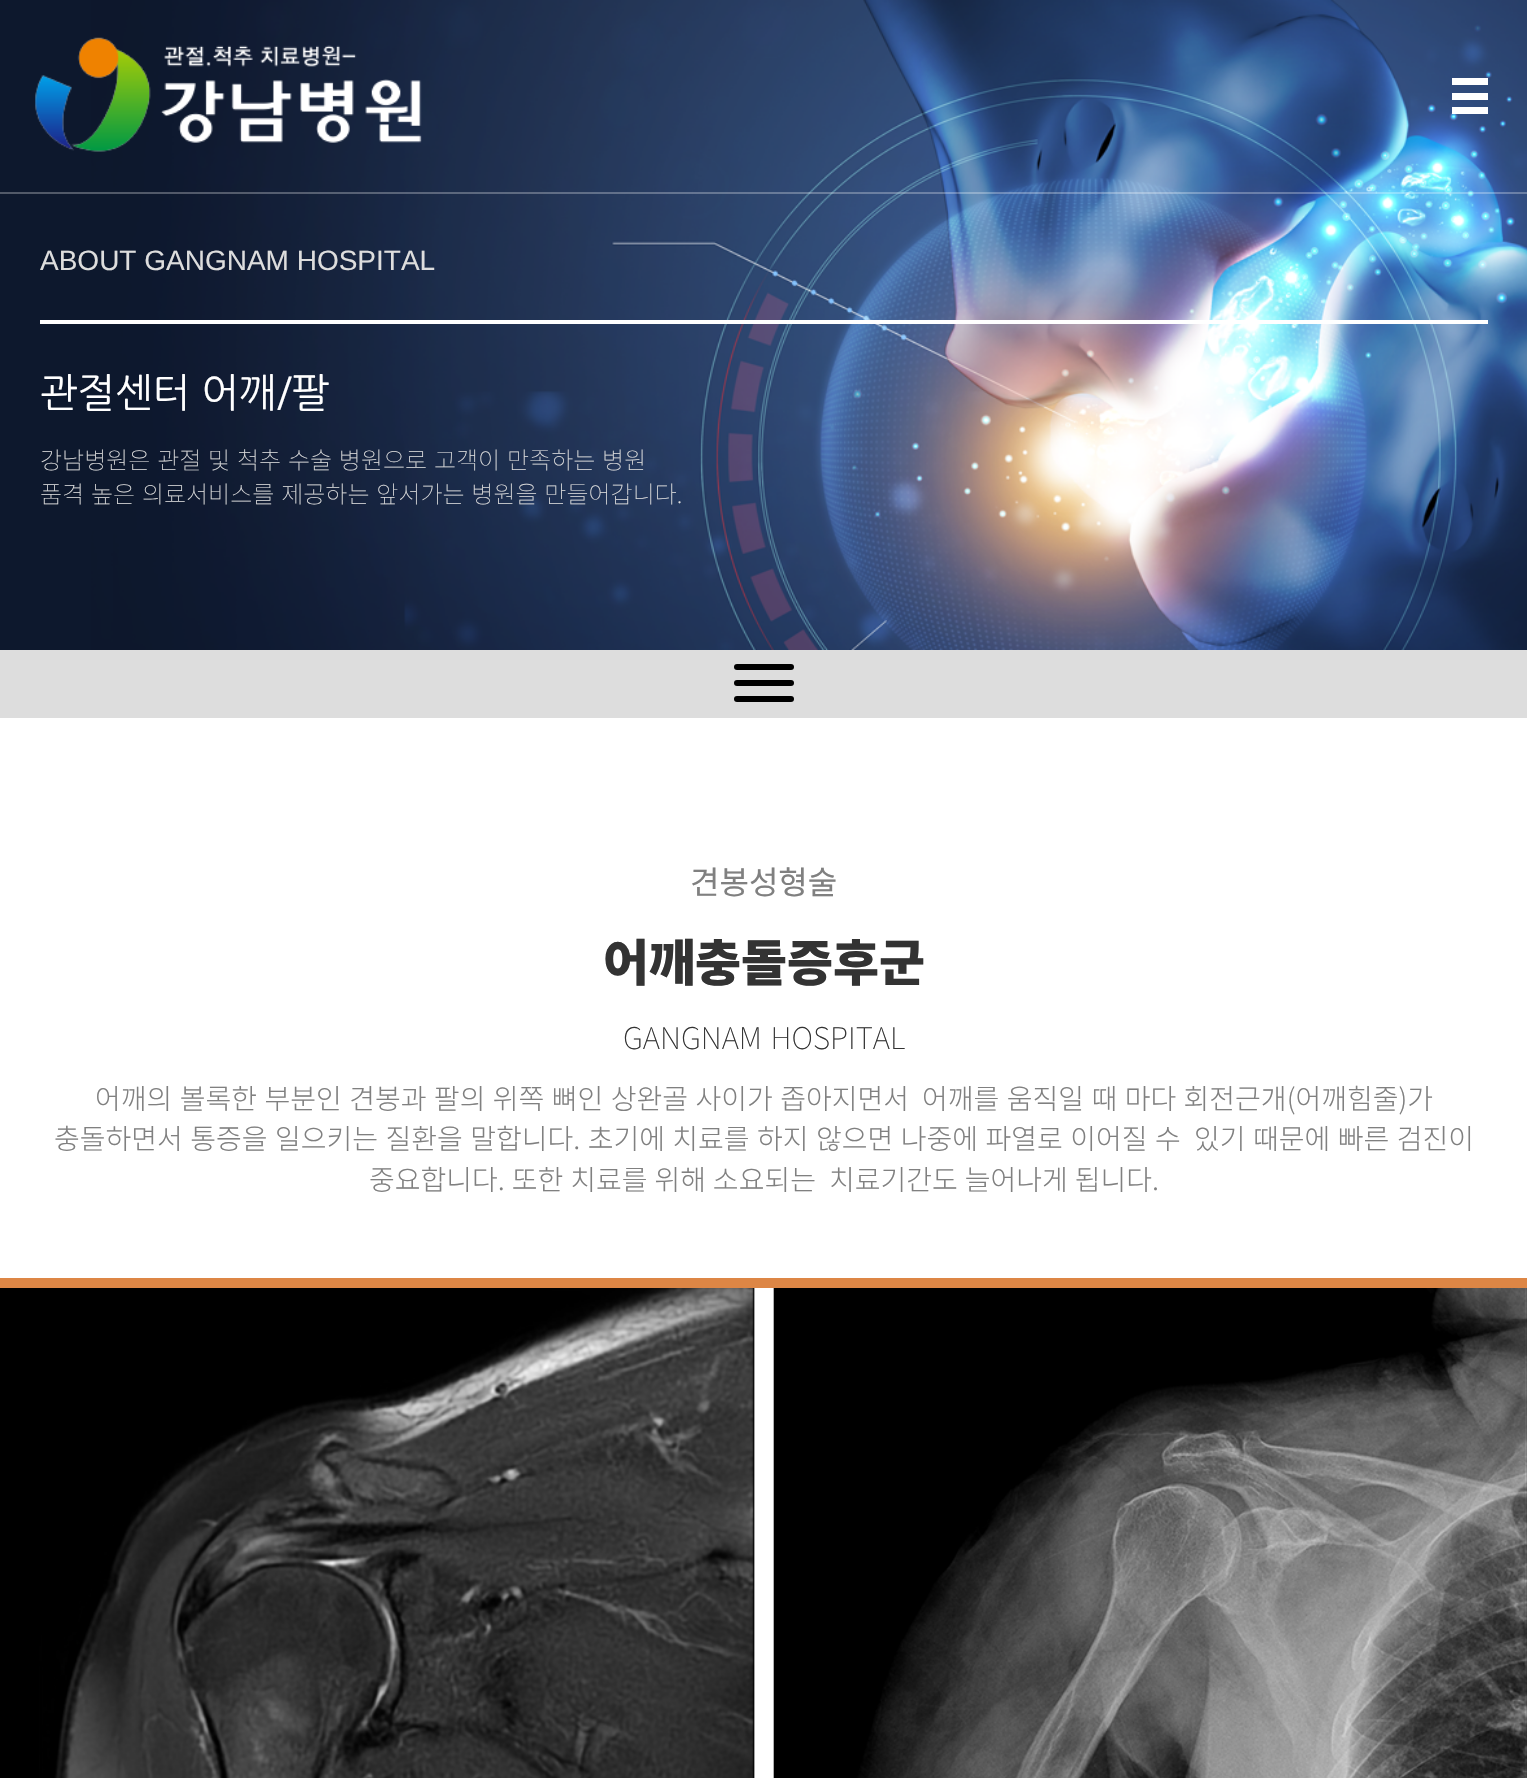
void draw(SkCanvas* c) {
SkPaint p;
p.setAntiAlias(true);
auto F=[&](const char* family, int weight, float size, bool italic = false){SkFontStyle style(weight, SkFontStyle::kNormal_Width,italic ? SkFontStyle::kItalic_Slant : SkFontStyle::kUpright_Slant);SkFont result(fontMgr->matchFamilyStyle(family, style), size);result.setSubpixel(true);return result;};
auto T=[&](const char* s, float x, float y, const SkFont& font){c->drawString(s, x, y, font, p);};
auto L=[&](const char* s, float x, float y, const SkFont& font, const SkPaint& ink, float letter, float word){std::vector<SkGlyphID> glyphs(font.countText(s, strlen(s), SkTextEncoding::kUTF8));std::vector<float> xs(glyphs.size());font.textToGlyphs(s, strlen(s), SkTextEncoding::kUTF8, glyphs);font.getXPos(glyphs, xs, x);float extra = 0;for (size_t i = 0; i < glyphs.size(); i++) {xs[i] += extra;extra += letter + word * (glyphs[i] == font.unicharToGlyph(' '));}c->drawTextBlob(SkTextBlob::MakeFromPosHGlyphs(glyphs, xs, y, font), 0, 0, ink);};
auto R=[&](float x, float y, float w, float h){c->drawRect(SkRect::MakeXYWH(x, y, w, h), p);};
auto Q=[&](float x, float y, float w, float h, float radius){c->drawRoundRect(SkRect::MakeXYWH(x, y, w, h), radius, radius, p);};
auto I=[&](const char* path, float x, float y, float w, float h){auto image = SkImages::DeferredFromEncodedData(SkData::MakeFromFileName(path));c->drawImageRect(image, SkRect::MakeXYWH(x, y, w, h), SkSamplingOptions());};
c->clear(0xffffffff);
I("2.png",0,0,1527,650);
I("1.png",35,37,387,115);
p.setColor(0xffffffff);
R(1452,78,36,7);
R(1452,93,36,7);
R(1452,107,36,7);
p.setColor(0x47ffffff);
R(0,192,1527,2);
auto f1 = F("Liberation Sans",400,28);
p.setColor(0xffdddddd);
T("ABOUT GANGNAM HOSPITAL",40,270,f1);
p.setColor(0xffffffff);
R(40,320,1448,4);
auto f2 = F("NanumGothic",400,40);
T("관절센터 어깨/팔",40,407,f2);
auto f3 = F("Noto Sans KR",100,24);
p.setColor(0xffdddddd);
L("강남병원은 관절 및 척추 수술 병원으로 고객이 만족하는 병원",40,469,f3,p,0,1.5);
L("품격 높은 의료서비스를 제공하는 앞서가는 병원을 만들어갑니다.",40,503,f3,p,0,1.5);
R(0,650,1527,68);
p.setColor(0xff000000);
Q(734,680,60,6,3);
Q(734,664,60,6,3);
Q(734,696,60,6,3);
auto f4 = F("Noto Sans KR",400,32);
p.setColor(0xff808080);
T("견봉성형술",690,894,f4);
auto f5 = F("Noto Sans KR",900,50);
p.setColor(0xff333333);
T("어깨충돌증후군",603,981,f5);
auto f6 = F("Noto Sans KR",100,30);
L("GANGNAM HOSPITAL",623,1049,f6,p,0,2);
auto f7 = F("Noto Sans KR",300,28);
p.setColor(0xff808080);
L("어깨의 볼록한 부분인 견봉과 팔의 위쪽 뼈인 상완골 사이가 좁아지면서",95,1109,f7,p,0,1.25);
L("어깨를 움직일 때 마다 회전근개(어깨힘줄)가",922,1109,f7,p,0,1.25);
L("충돌하면서 통증을 일으키는 질환을 말합니다. 초기에 치료를 하지 않으면 나중에 파열로 이어질 수",54,1149,f7,p,0,1.25);
L("있기 때문에 빠른 검진이",1194,1149,f7,p,0,1.25);
L("중요합니다. 또한 치료를 위해 소요되는",369,1190,f7,p,0,.75);
L("치료기간도 늘어나게 됩니다.",829,1190,f7,p,0,.75);
p.setColor(0xffdd8645);
R(0,1278,1527,10);
I("3.png",0,1288,1527,490);
}
